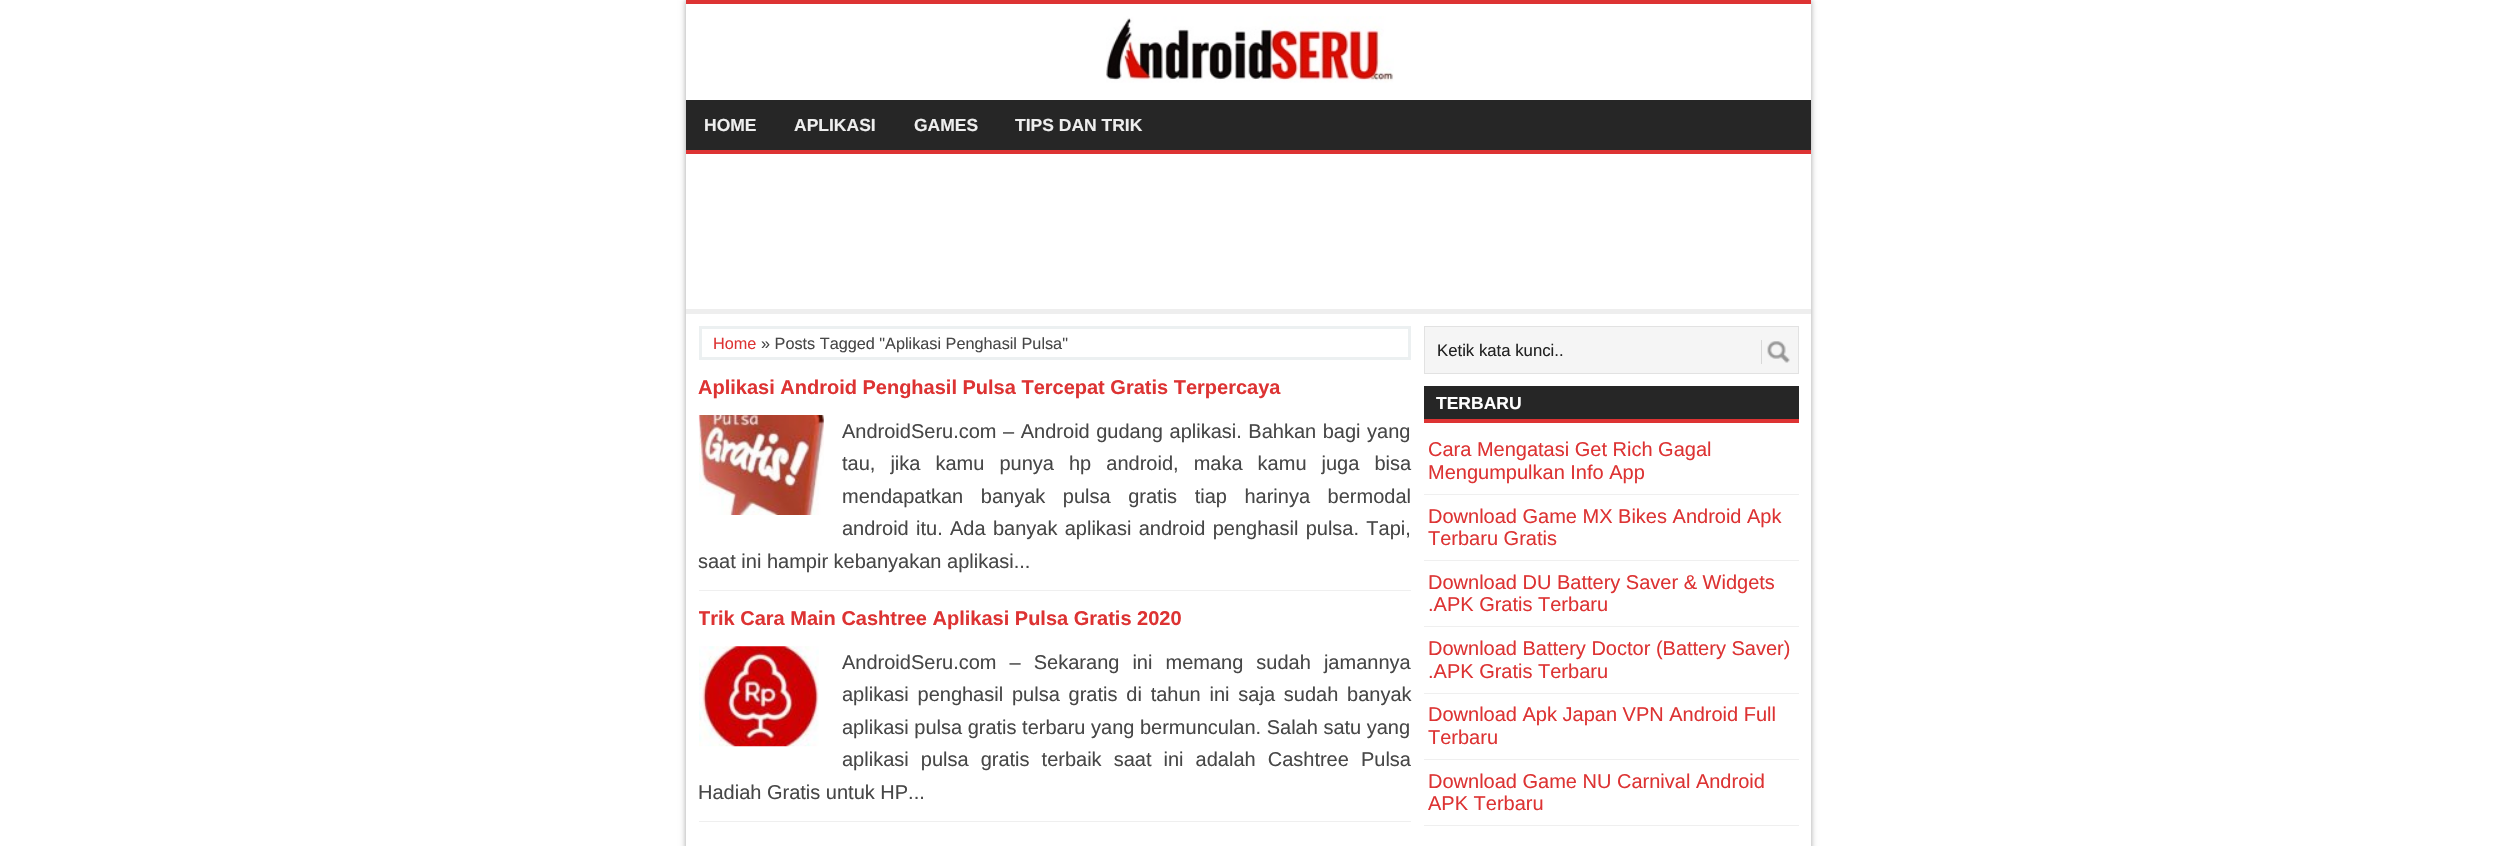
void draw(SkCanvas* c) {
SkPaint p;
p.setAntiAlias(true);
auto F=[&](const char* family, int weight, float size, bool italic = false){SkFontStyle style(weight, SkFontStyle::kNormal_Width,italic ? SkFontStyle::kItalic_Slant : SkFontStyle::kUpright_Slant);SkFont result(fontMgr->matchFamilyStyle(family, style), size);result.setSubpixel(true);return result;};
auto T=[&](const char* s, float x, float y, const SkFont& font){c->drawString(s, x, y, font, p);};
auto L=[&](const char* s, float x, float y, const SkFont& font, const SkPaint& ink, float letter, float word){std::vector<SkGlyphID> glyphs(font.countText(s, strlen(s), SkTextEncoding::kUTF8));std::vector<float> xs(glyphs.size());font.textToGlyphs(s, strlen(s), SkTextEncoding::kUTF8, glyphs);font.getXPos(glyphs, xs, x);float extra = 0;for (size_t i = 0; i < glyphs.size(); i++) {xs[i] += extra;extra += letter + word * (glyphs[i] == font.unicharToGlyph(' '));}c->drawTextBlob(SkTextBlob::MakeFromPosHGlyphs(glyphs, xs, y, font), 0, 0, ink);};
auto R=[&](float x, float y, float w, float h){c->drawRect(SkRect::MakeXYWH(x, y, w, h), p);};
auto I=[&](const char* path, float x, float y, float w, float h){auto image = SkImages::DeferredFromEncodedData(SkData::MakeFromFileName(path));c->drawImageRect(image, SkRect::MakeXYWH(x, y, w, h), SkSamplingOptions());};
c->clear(0xffffffff);
p.setColor(0x5c000000);
p.setMaskFilter(SkMaskFilter::MakeBlur(kNormal_SkBlurStyle, 3));
c->drawRect(SkRect::MakeXYWH(686,0,1125,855),p);
p.setMaskFilter(nullptr);
p.setColor(0xffffffff);
R(686,4,1125,842);
p.setColor(0xffdd3333);
R(686,0,1125,4);
I("1.png",1106,16,288,67);
p.setColor(0xff262626);
R(686,100,1125,50);
p.setColor(0xffdd3333);
R(686,150,1125,4);
auto f1 = F("Liberation Sans",700,17.5);
p.setColor(0xffeeeeee);
T("HOME",704,131,f1);
T("APLIKASI",794,131,f1);
T("GAMES",914,131,f1);
T("TIPS DAN TRIK",1015,131,f1);
R(686,309,1125,5);
p.setStroke(true);
p.setStrokeWidth(3);
p.setColor(0xffecf0f1);
c->drawRect(SkRect::MakeXYWH(700.5,327.5,709,31),p);
auto f2 = F("Liberation Sans",400,16.25);
p.setStroke(false);
p.setColor(0xffdd3333);
T("Home",713,349,f2);
p.setColor(0xff474747);
T("» Posts Tagged \"Aplikasi Penghasil Pulsa\"",761,349,f2);
p.setColor(0xffefefef);
R(699,590,712,1);
auto f3 = F("Liberation Sans",700,20);
p.setColor(0xffdd3333);
T("Aplikasi Android Penghasil Pulsa Tercepat Gratis Terpercaya",698,394,f3);
I("2.png",698,415,126,100);
auto f4 = F("Liberation Sans",400,20);
p.setColor(0xff474747);
L("AndroidSeru.com – Android gudang aplikasi. Bahkan bagi yang",842,438,f4,p,0,1);
L("tau, jika kamu punya hp android, maka kamu juga bisa",842,470,f4,p,0,9.5);
L("mendapatkan banyak pulsa gratis tiap harinya bermodal",842,503,f4,p,0,12);
L("android itu. Ada banyak aplikasi android penghasil pulsa. Tapi,",842,535,f4,p,0,1.75);
T("saat ini hampir kebanyakan aplikasi...",698,568,f4);
p.setColor(0xffefefef);
R(699,821,712,1);
c->save();
c->clipRect(SkRect::MakeXYWH(699,591,712,230));
p.setColor(0xffdd3333);
T("Trik Cara Main Cashtree Aplikasi Pulsa Gratis 2020",698,625,f3);
c->restore();
I("3.png",699,646,120,101);
p.setColor(0xff474747);
L("AndroidSeru.com – Sekarang ini memang sudah jamannya",842,669,f4,p,0,7.5);
L("aplikasi penghasil pulsa gratis di tahun ini saja sudah banyak",842,701,f4,p,0,3.25);
T("aplikasi pulsa gratis terbaru yang bermunculan. Salah satu yang",842,734,f4);
L("aplikasi pulsa gratis terbaik saat ini adalah Cashtree Pulsa",842,766,f4,p,0,6.5);
T("Hadiah Gratis untuk HP...",698,799,f4);
p.setColor(0xfff5f5f5);
c->drawRect(SkRect::MakeXYWH(1424.5,326.5,374,47),p);
p.setStroke(true);
p.setStrokeWidth(1);
p.setColor(0xffe2e2e2);
c->drawRect(SkRect::MakeXYWH(1424.5,326.5,374,47),p);
auto f5 = F("Liberation Sans",400,16.75);
p.setStroke(false);
p.setColor(0xff222222);
T("Ketik kata kunci..",1437,356,f5);
I("4.png",1767,341,23,22);
p.setColor(0xffd8d8d8);
R(1761,340,1,24);
p.setColor(0xff262626);
R(1424,386,375,33);
p.setColor(0xffdd3333);
R(1424,419,375,4);
p.setColor(0xffffffff);
T("TERBARU",1436,409,f1);
p.setColor(0xffefefef);
R(1424,494,375,1);
p.setColor(0xffdd3333);
T("Cara Mengatasi Get Rich Gagal",1428,456,f4);
T("Mengumpulkan Info App",1428,479,f4);
p.setColor(0xffefefef);
R(1424,560,375,1);
p.setColor(0xffdd3333);
T("Download Game MX Bikes Android Apk",1428,523,f4);
T("Terbaru Gratis",1428,545,f4);
p.setColor(0xffefefef);
R(1424,626,375,1);
p.setColor(0xffdd3333);
T("Download DU Battery Saver & Widgets",1428,589,f4);
T(".APK Gratis Terbaru",1428,611,f4);
p.setColor(0xffefefef);
R(1424,693,375,1);
p.setColor(0xffdd3333);
T("Download Battery Doctor (Battery Saver)",1428,655,f4);
T(".APK Gratis Terbaru",1428,678,f4);
p.setColor(0xffefefef);
R(1424,759,375,1);
p.setColor(0xffdd3333);
T("Download Apk Japan VPN Android Full",1428,721,f4);
T("Terbaru",1428,744,f4);
p.setColor(0xffefefef);
R(1424,825,375,1);
p.setColor(0xffdd3333);
T("Download Game NU Carnival Android",1428,788,f4);
T("APK Terbaru",1428,810,f4);
}
